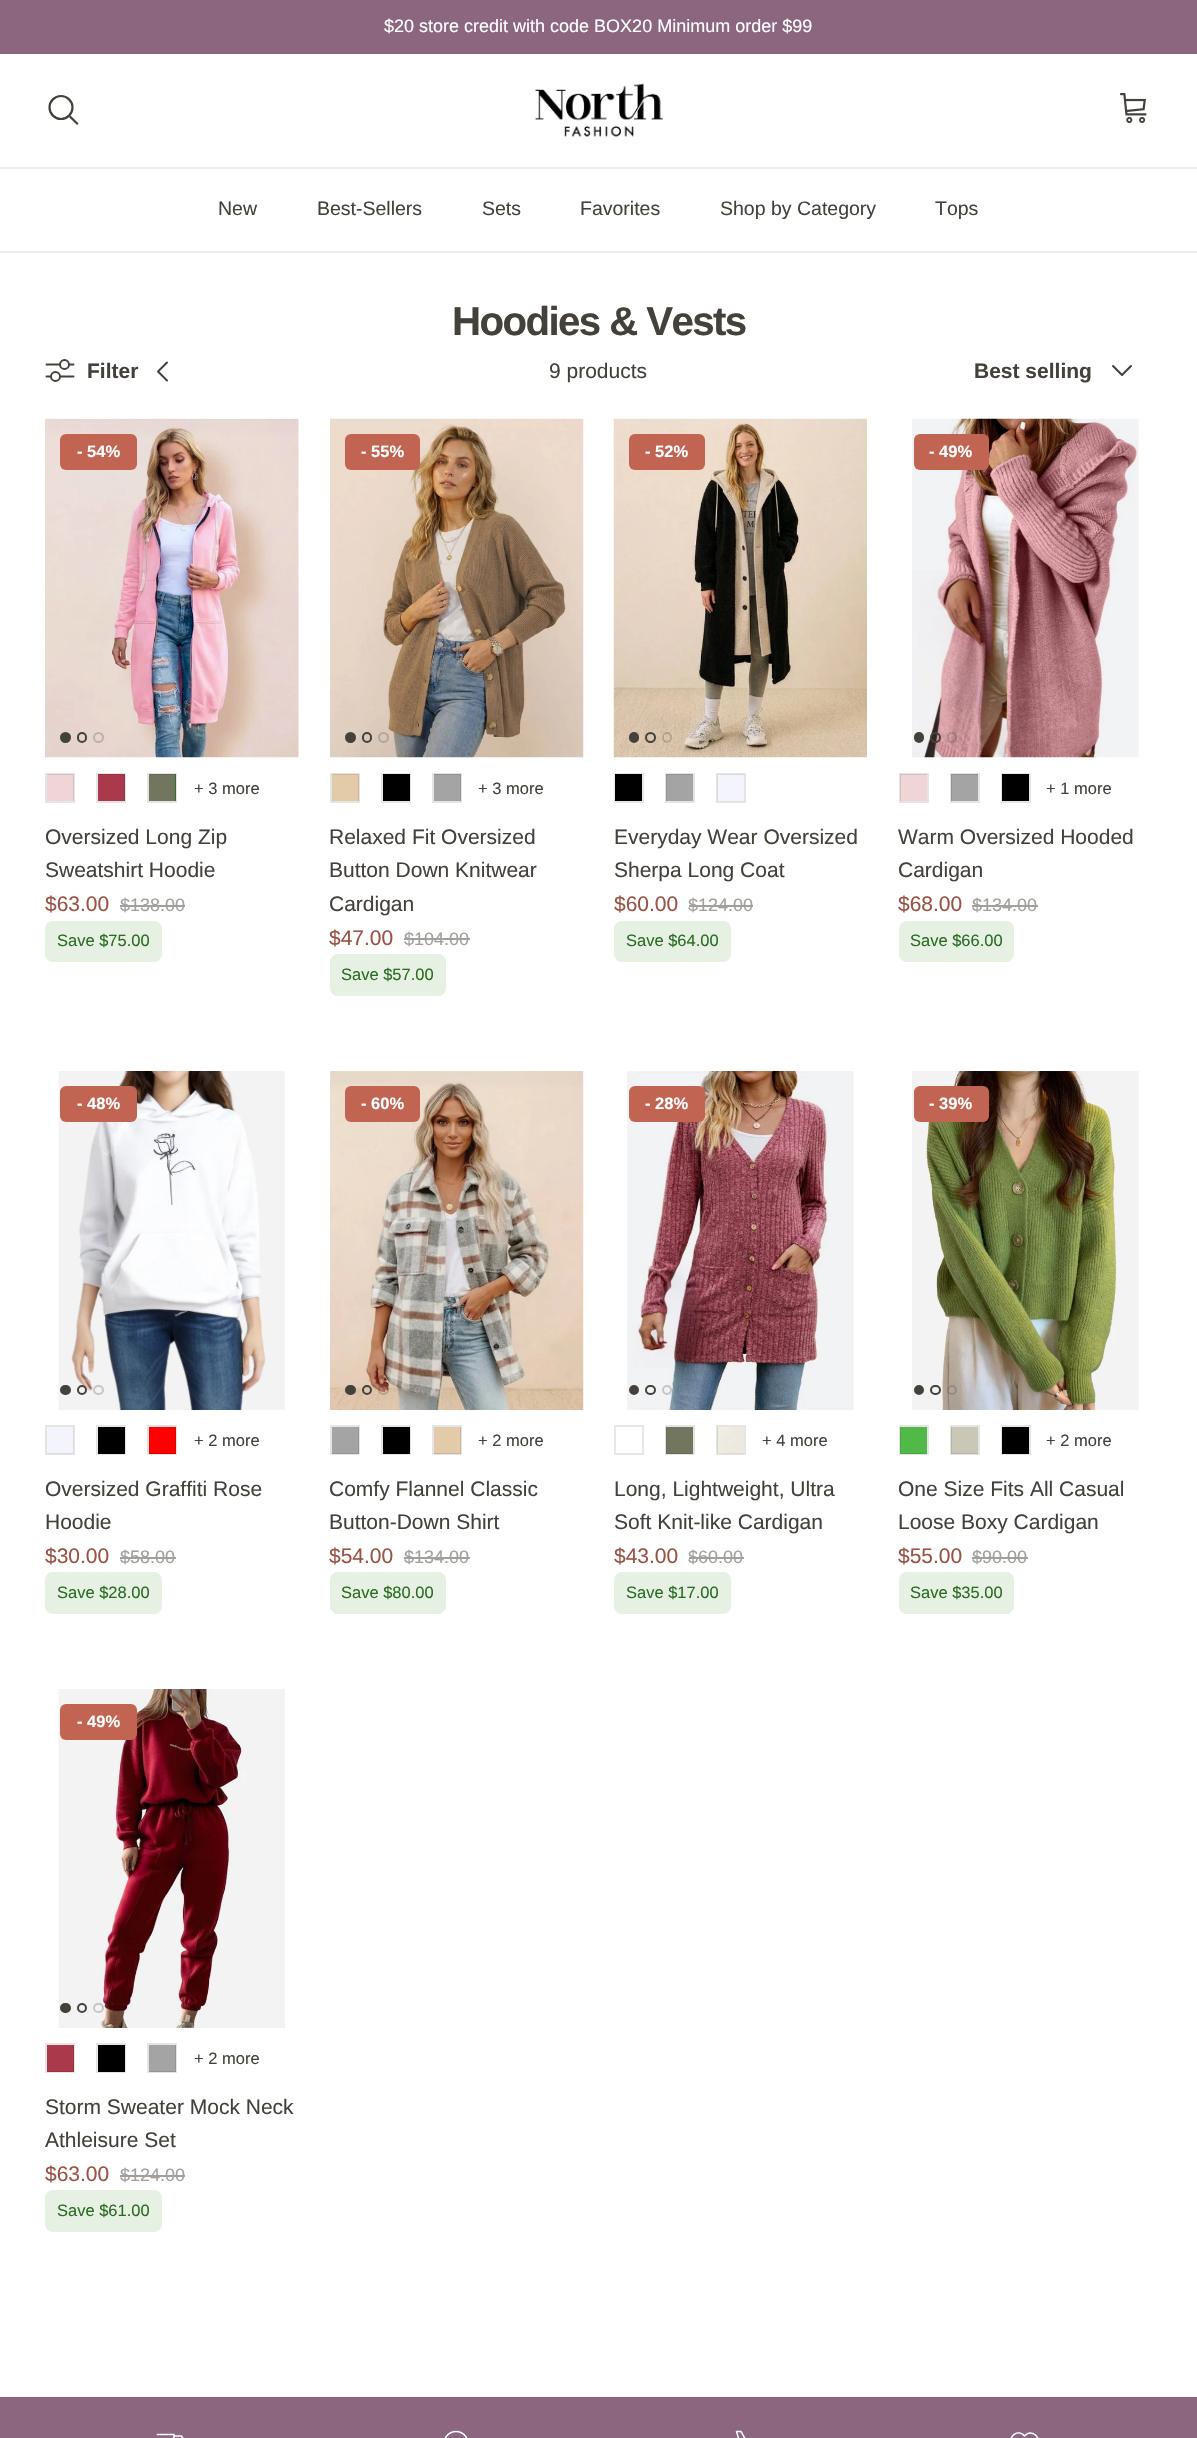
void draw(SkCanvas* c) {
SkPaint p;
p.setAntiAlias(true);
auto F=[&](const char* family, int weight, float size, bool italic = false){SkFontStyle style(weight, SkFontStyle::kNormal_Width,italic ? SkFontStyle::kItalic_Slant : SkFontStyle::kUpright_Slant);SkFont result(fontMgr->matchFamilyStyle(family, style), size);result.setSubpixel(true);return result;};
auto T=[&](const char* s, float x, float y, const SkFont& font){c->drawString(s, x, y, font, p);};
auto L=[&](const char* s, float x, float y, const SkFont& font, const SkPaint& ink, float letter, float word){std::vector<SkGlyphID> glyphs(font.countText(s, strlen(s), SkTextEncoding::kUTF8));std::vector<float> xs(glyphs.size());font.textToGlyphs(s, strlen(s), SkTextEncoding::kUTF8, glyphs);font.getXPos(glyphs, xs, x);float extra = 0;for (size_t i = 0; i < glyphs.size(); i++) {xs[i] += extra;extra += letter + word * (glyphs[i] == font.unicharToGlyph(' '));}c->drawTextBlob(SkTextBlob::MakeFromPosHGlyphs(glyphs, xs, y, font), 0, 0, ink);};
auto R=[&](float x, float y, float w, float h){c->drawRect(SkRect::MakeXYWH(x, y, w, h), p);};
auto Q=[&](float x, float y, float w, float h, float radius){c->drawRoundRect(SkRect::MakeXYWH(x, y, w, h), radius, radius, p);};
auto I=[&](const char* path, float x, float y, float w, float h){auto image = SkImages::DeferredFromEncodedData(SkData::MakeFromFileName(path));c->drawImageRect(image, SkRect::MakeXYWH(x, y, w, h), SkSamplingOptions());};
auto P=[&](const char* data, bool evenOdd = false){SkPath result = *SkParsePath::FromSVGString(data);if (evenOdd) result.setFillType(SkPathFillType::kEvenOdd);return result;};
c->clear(0xffffffff);
p.setColor(0xff8c657f);
R(0,0,1197,54);
auto f1 = F("Liberation Sans",400,18);
p.setColor(0xffffffff);
T("$20 store credit with code BOX20 Minimum order $99",384,32,f1);
p.setColor(0xffececec);
R(0,167,1197,2);
p.setStroke(true);
p.setStrokeWidth(2.2);
p.setColor(0xff44413b);
c->drawCircle(61,107.5,11.5,p);
p.setStrokeCap(SkPaint::kSquare_Cap);
c->drawPath(P("M70.5 117l6.5 6.5"),p);
I("1.png",535,83,128,54);
I("2.png",1120,93,27,30);
p.setStroke(false);
p.setColor(0xffececec);
R(0,251,1197,2);
auto f2 = F("Liberation Sans",400,19.5);
p.setColor(0xff44413b);
T("New",218,215,f2);
T("Best-Sellers",317,215,f2);
T("Sets",482,215,f2);
T("Favorites",580,215,f2);
T("Shop by Category",720,215,f2);
T("Tops",935,215,f2);
auto f3 = F("Liberation Sans",700,40.25);
L("Hoodies & Vests",452,335,f3,p,-1.6,0);
p.setStroke(true);
p.setStrokeWidth(1.9);
p.setStrokeCap(SkPaint::kRound_Cap);
p.setStrokeJoin(SkPaint::kRound_Join);
c->drawPath(P("M46.5 364.5h27m-27 12h27"),p);
p.setStroke(false);
p.setColor(0xffffffff);
c->drawCircle(64.5,364.5,4.5,p);
p.setStroke(true);
p.setStrokeCap(SkPaint::kButt_Cap);
p.setStrokeJoin(SkPaint::kMiter_Join);
p.setColor(0xff44413b);
c->drawCircle(64.5,364.5,4.5,p);
p.setStroke(false);
p.setColor(0xffffffff);
c->drawCircle(55.5,376.5,4.5,p);
p.setStroke(true);
p.setColor(0xff44413b);
c->drawCircle(55.5,376.5,4.5,p);
auto f4 = F("Liberation Sans",700,21);
p.setStroke(false);
T("Filter",87,378,f4);
p.setStroke(true);
p.setStrokeWidth(2);
p.setStrokeCap(SkPaint::kRound_Cap);
p.setStrokeJoin(SkPaint::kRound_Join);
c->drawPath(P("M167 362.5l-9 9l9 9"),p);
auto f5 = F("Liberation Sans",400,21);
p.setStroke(false);
T("9 products",549,378,f5);
T("Best selling",974,378,f4);
p.setStroke(true);
c->drawPath(P("M1113 366l9 9l9-9"),p);
I("3.png",45,418,254,340);
p.setStroke(false);
p.setColor(0xffc16452);
Q(60,434,77,36,6);
auto f6 = F("Liberation Sans",700,16.5);
p.setColor(0xffffffff);
T("- 54%",77,457,f6);
p.setColor(0xff44413b);
c->drawCircle(65.5,737.5,4.5,p);
p.setStroke(true);
p.setStrokeCap(SkPaint::kButt_Cap);
p.setStrokeJoin(SkPaint::kMiter_Join);
c->drawCircle(65.5,737.5,4.5,p);
c->drawRoundRect(SkRect::MakeXYWH(78,733,8,9),4,4,p);
p.setColor(0x4044413b);
c->drawCircle(98.5,737.5,4.5,p);
I("4.png",47,774,27,27);
p.setColor(0x1a000000);
c->drawRect(SkRect::MakeXYWH(46,774,28,28),p);
p.setStroke(false);
p.setColor(0xffaa3a4b);
R(98,774,27,27);
p.setStroke(true);
p.setColor(0x1a000000);
c->drawRect(SkRect::MakeXYWH(97,774,28,28),p);
p.setStroke(false);
p.setColor(0xff008000);
R(175,774,1,27);
I("5.png",149,774,27,27);
p.setStroke(true);
p.setColor(0x1a000000);
c->drawRect(SkRect::MakeXYWH(148,774,28,28),p);
auto f7 = F("Liberation Sans",400,16.5);
p.setStroke(false);
p.setColor(0xff44413b);
T("+ 3 more",194,794,f7);
T("Oversized Long Zip",45,844,f5);
T("Sweatshirt Hoodie",45,877,f5);
p.setColor(0xff9c5243);
T("$63.00",45,911,f5);
p.setColor(0xffa2a09d);
T("$138.00",120,911,f1);
R(120,905,65,2);
p.setColor(0xffe6f1e4);
Q(45,921,117,41,8);
p.setColor(0xff2a6c22);
T("Save $75.00",57,946,f7);
I("6.png",330,418,254,340);
p.setColor(0xffc16452);
Q(345,434,75,36,6);
p.setColor(0xffffffff);
T("- 55%",361,457,f6);
p.setColor(0xff44413b);
c->drawCircle(350.5,737.5,4.5,p);
p.setStroke(true);
c->drawCircle(350.5,737.5,4.5,p);
c->drawRoundRect(SkRect::MakeXYWH(363,733,8,9),4,4,p);
p.setColor(0x4044413b);
c->drawCircle(383.5,737.5,4.5,p);
p.setStroke(false);
p.setColor(0xffe3cbaa);
R(332,774,27,27);
p.setStroke(true);
p.setColor(0x1a000000);
c->drawRect(SkRect::MakeXYWH(331,774,28,28),p);
p.setStroke(false);
p.setColor(0xff000000);
R(383,774,27,27);
p.setStroke(true);
p.setColor(0x1a000000);
c->drawRect(SkRect::MakeXYWH(382,774,28,28),p);
p.setStroke(false);
p.setColor(0xffa4a4a4);
R(434,774,27,27);
p.setStroke(true);
p.setColor(0x1a000000);
c->drawRect(SkRect::MakeXYWH(433,774,28,28),p);
p.setStroke(false);
p.setColor(0xff44413b);
T("+ 3 more",478,794,f7);
T("Relaxed Fit Oversized",329,844,f5);
T("Button Down Knitwear",329,877,f5);
T("Cardigan",329,911,f5);
p.setColor(0xff9c5243);
T("$47.00",329,945,f5);
p.setColor(0xffa2a09d);
T("$104.00",404,945,f1);
R(404,938,66,2);
p.setColor(0xffe6f1e4);
Q(330,954,116,42,8);
p.setColor(0xff2a6c22);
T("Save $57.00",341,980,f7);
I("7.png",613,418,254,340);
p.setColor(0xffc16452);
Q(629,434,76,36,6);
p.setColor(0xffffffff);
T("- 52%",645,457,f6);
p.setColor(0xff44413b);
c->drawRoundRect(SkRect::MakeXYWH(630,733,8,9),4,4,p);
p.setStroke(true);
c->drawRoundRect(SkRect::MakeXYWH(630,733,8,9),4,4,p);
c->drawCircle(650.5,737.5,4.5,p);
p.setColor(0x4044413b);
c->drawRoundRect(SkRect::MakeXYWH(663,733,8,9),4,4,p);
p.setStroke(false);
p.setColor(0xff000000);
R(615,774,27,27);
p.setStroke(true);
p.setColor(0x1a000000);
c->drawRect(SkRect::MakeXYWH(615,774,28,28),p);
p.setStroke(false);
p.setColor(0xffa4a4a4);
R(666,774,27,27);
p.setStroke(true);
p.setColor(0x1a000000);
c->drawRect(SkRect::MakeXYWH(666,774,28,28),p);
p.setStroke(false);
p.setColor(0xfff4f5fc);
R(717,774,27,27);
p.setStroke(true);
p.setColor(0x1a000000);
c->drawRect(SkRect::MakeXYWH(717,774,28,28),p);
p.setStroke(false);
p.setColor(0xff44413b);
T("Everyday Wear Oversized",614,844,f5);
T("Sherpa Long Coat",614,877,f5);
p.setColor(0xff9c5243);
T("$60.00",614,911,f5);
p.setColor(0xffa2a09d);
T("$124.00",688,911,f1);
R(689,905,64,2);
p.setColor(0xffe6f1e4);
Q(614,921,117,41,8);
p.setColor(0xff2a6c22);
T("Save $64.00",626,946,f7);
I("8.png",912,418,227,340);
p.setColor(0xffc16452);
Q(914,434,75,36,6);
p.setColor(0xffffffff);
T("- 49%",929,457,f6);
p.setColor(0xff44413b);
c->drawRoundRect(SkRect::MakeXYWH(915,733,8,9),4,4,p);
p.setStroke(true);
c->drawRoundRect(SkRect::MakeXYWH(915,733,8,9),4,4,p);
c->drawCircle(935.5,737.5,4.5,p);
p.setColor(0x4044413b);
c->drawRoundRect(SkRect::MakeXYWH(948,733,8,9),4,4,p);
I("9.png",900,774,27,27);
p.setColor(0x1a000000);
c->drawRect(SkRect::MakeXYWH(900,774,28,28),p);
p.setStroke(false);
p.setColor(0xffa4a4a4);
R(951,774,27,27);
p.setStroke(true);
p.setColor(0x1a000000);
c->drawRect(SkRect::MakeXYWH(951,774,28,28),p);
p.setStroke(false);
p.setColor(0xff000000);
R(1002,774,27,27);
p.setStroke(true);
p.setColor(0x1a000000);
c->drawRect(SkRect::MakeXYWH(1002,774,28,28),p);
p.setStroke(false);
p.setColor(0xff44413b);
T("+ 1 more",1046,794,f7);
T("Warm Oversized Hooded",898,844,f5);
T("Cardigan",898,877,f5);
p.setColor(0xff9c5243);
T("$68.00",898,911,f5);
p.setColor(0xffa2a09d);
T("$134.00",972,911,f1);
R(972,905,66,2);
p.setColor(0xffe6f1e4);
Q(899,921,115,41,8);
p.setColor(0xff2a6c22);
T("Save $66.00",910,946,f7);
I("10.png",58,1071,227,339);
p.setColor(0xffc16452);
Q(60,1086,77,36,6);
p.setColor(0xffffffff);
T("- 48%",77,1109,f6);
p.setColor(0xff44413b);
c->drawRoundRect(SkRect::MakeXYWH(61,1386,9,8),4,4,p);
p.setStroke(true);
c->drawRoundRect(SkRect::MakeXYWH(61,1386,9,8),4,4,p);
c->drawCircle(82,1390,4,p);
p.setColor(0xffc7c6c5);
c->drawRoundRect(SkRect::MakeXYWH(94,1386,9,8),4,4,p);
p.setStroke(false);
p.setColor(0xfff4f5fc);
R(47,1427,27,27);
p.setStroke(true);
p.setColor(0x1a000000);
c->drawRect(SkRect::MakeXYWH(46,1426,28,28),p);
p.setStroke(false);
p.setColor(0xff000000);
R(98,1427,27,27);
p.setStroke(true);
p.setColor(0x1a000000);
c->drawRect(SkRect::MakeXYWH(97,1426,28,28),p);
p.setStroke(false);
p.setColor(0xffff0000);
R(149,1427,27,27);
p.setStroke(true);
p.setColor(0x1a000000);
c->drawRect(SkRect::MakeXYWH(148,1426,28,28),p);
p.setStroke(false);
p.setColor(0xff44413b);
T("+ 2 more",194,1446,f7);
T("Oversized Graffiti Rose",45,1496,f5);
T("Hoodie",45,1529,f5);
p.setColor(0xff9c5243);
T("$30.00",45,1563,f5);
p.setColor(0xffa2a09d);
T("$58.00",120,1563,f1);
R(120,1557,56,2);
p.setColor(0xffe6f1e4);
Q(45,1572,117,42,8);
p.setColor(0xff2a6c22);
T("Save $28.00",57,1598,f7);
I("11.png",330,1071,254,339);
p.setColor(0xffc16452);
Q(345,1086,75,36,6);
p.setColor(0xffffffff);
T("- 60%",361,1109,f6);
p.setColor(0xff44413b);
c->drawRoundRect(SkRect::MakeXYWH(346,1386,9,8),4,4,p);
p.setStroke(true);
c->drawRoundRect(SkRect::MakeXYWH(346,1386,9,8),4,4,p);
c->drawCircle(367,1390,4,p);
p.setColor(0x4044413b);
c->drawRoundRect(SkRect::MakeXYWH(379,1386,9,8),4,4,p);
p.setStroke(false);
p.setColor(0xffa4a4a4);
R(332,1427,27,27);
p.setStroke(true);
p.setColor(0x1a000000);
c->drawRect(SkRect::MakeXYWH(331,1426,28,28),p);
p.setStroke(false);
p.setColor(0xff000000);
R(383,1427,27,27);
p.setStroke(true);
p.setColor(0x1a000000);
c->drawRect(SkRect::MakeXYWH(382,1426,28,28),p);
p.setStroke(false);
p.setColor(0xffe3cbaa);
R(434,1427,27,27);
p.setStroke(true);
p.setColor(0x1a000000);
c->drawRect(SkRect::MakeXYWH(433,1426,28,28),p);
p.setStroke(false);
p.setColor(0xff44413b);
T("+ 2 more",478,1446,f7);
T("Comfy Flannel Classic",329,1496,f5);
T("Button-Down Shirt",329,1529,f5);
p.setColor(0xff9c5243);
T("$54.00",329,1563,f5);
p.setColor(0xffa2a09d);
T("$134.00",404,1563,f1);
R(404,1557,66,2);
p.setColor(0xffe6f1e4);
Q(330,1572,116,42,8);
p.setColor(0xff2a6c22);
T("Save $80.00",341,1598,f7);
I("12.png",627,1071,227,339);
p.setColor(0xffc16452);
Q(629,1086,76,36,6);
p.setColor(0xffffffff);
T("- 28%",645,1109,f6);
p.setColor(0xff44413b);
c->drawCircle(634,1390,4,p);
p.setStroke(true);
c->drawCircle(634,1390,4,p);
c->drawRoundRect(SkRect::MakeXYWH(646,1386,9,8),4,4,p);
p.setColor(0x4044413b);
c->drawCircle(667,1390,4,p);
p.setColor(0xffe6e6e6);
c->drawRect(SkRect::MakeXYWH(615,1426,28,28),p);
p.setStroke(false);
p.setColor(0xff72765e);
R(666,1427,27,27);
p.setStroke(true);
p.setColor(0x1a000000);
c->drawRect(SkRect::MakeXYWH(666,1426,28,28),p);
I("13.png",717,1427,27,27);
c->drawRect(SkRect::MakeXYWH(717,1426,28,28),p);
p.setStroke(false);
p.setColor(0xff44413b);
T("+ 4 more",762,1446,f7);
T("Long, Lightweight, Ultra",614,1496,f5);
T("Soft Knit-like Cardigan",614,1529,f5);
p.setColor(0xff9c5243);
T("$43.00",614,1563,f5);
p.setColor(0xffa2a09d);
T("$60.00",688,1563,f1);
R(689,1557,55,2);
p.setColor(0xffe6f1e4);
Q(614,1572,117,42,8);
p.setColor(0xff2a6c22);
T("Save $17.00",626,1598,f7);
I("14.png",912,1071,227,339);
p.setColor(0xffc16452);
Q(914,1086,75,36,6);
p.setColor(0xffffffff);
T("- 39%",929,1109,f6);
p.setColor(0xff44413b);
c->drawCircle(919,1390,4,p);
p.setStroke(true);
c->drawCircle(919,1390,4,p);
c->drawRoundRect(SkRect::MakeXYWH(931,1386,9,8),4,4,p);
p.setColor(0x4044413b);
c->drawCircle(952,1390,4,p);
p.setStroke(false);
p.setColor(0xff50b948);
R(900,1427,27,27);
p.setStroke(true);
p.setColor(0x1a000000);
c->drawRect(SkRect::MakeXYWH(900,1426,28,28),p);
p.setStroke(false);
p.setColor(0xffcbc7b6);
R(951,1427,27,27);
p.setStroke(true);
p.setColor(0x1a000000);
c->drawRect(SkRect::MakeXYWH(951,1426,28,28),p);
p.setStroke(false);
p.setColor(0xff000000);
R(1002,1427,27,27);
p.setStroke(true);
p.setColor(0x1a000000);
c->drawRect(SkRect::MakeXYWH(1002,1426,28,28),p);
p.setStroke(false);
p.setColor(0xff44413b);
T("+ 2 more",1046,1446,f7);
T("One Size Fits All Casual",898,1496,f5);
T("Loose Boxy Cardigan",898,1529,f5);
p.setColor(0xff9c5243);
T("$55.00",898,1563,f5);
p.setColor(0xffa2a09d);
T("$90.00",972,1563,f1);
R(972,1557,56,2);
p.setColor(0xffe6f1e4);
Q(899,1572,115,42,8);
p.setColor(0xff2a6c22);
T("Save $35.00",910,1598,f7);
I("15.png",58,1689,227,339);
p.setColor(0xffc16452);
Q(60,1704,77,36,6);
p.setColor(0xffffffff);
T("- 49%",77,1727,f6);
p.setColor(0xff44413b);
c->drawRoundRect(SkRect::MakeXYWH(61,2004,9,8),4,4,p);
p.setStroke(true);
c->drawRoundRect(SkRect::MakeXYWH(61,2004,9,8),4,4,p);
c->drawCircle(82,2008,4,p);
p.setColor(0x4044413b);
c->drawRoundRect(SkRect::MakeXYWH(94,2004,9,8),4,4,p);
p.setStroke(false);
p.setColor(0xffaa3a4b);
R(47,2045,27,27);
p.setStroke(true);
p.setColor(0x1a000000);
c->drawRect(SkRect::MakeXYWH(46,2044,28,28),p);
p.setStroke(false);
p.setColor(0xff000000);
R(98,2045,27,27);
p.setStroke(true);
p.setColor(0x1a000000);
c->drawRect(SkRect::MakeXYWH(97,2044,28,28),p);
p.setStroke(false);
p.setColor(0xffa4a4a4);
R(149,2045,27,27);
p.setStroke(true);
p.setColor(0x1a000000);
c->drawRect(SkRect::MakeXYWH(148,2044,28,28),p);
p.setStroke(false);
p.setColor(0xff44413b);
T("+ 2 more",194,2064,f7);
T("Storm Sweater Mock Neck",45,2114,f5);
T("Athleisure Set",45,2147,f5);
p.setColor(0xff9c5243);
T("$63.00",45,2181,f5);
p.setColor(0xffa2a09d);
T("$124.00",120,2181,f1);
R(120,2175,65,2);
p.setColor(0xffe6f1e4);
Q(45,2190,117,42,8);
p.setColor(0xff2a6c22);
T("Save $61.00",57,2216,f7);
p.setColor(0xff8c657f);
R(0,2397,1197,41);
I("16.png",156,2433,28,5);
I("17.png",444,2430,24,8);
I("18.png",735,2430,11,8);
p.setStroke(true);
p.setStrokeWidth(1.5);
p.setStrokeCap(SkPaint::kRound_Cap);
p.setStrokeJoin(SkPaint::kRound_Join);
p.setColor(0xffffffff);
c->drawPath(P("M1036 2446l-11.5 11l-12.5-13c-4.5-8 7-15.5 12.5-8c6.5-8.5 19 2.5 11.5 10"),p);
}
